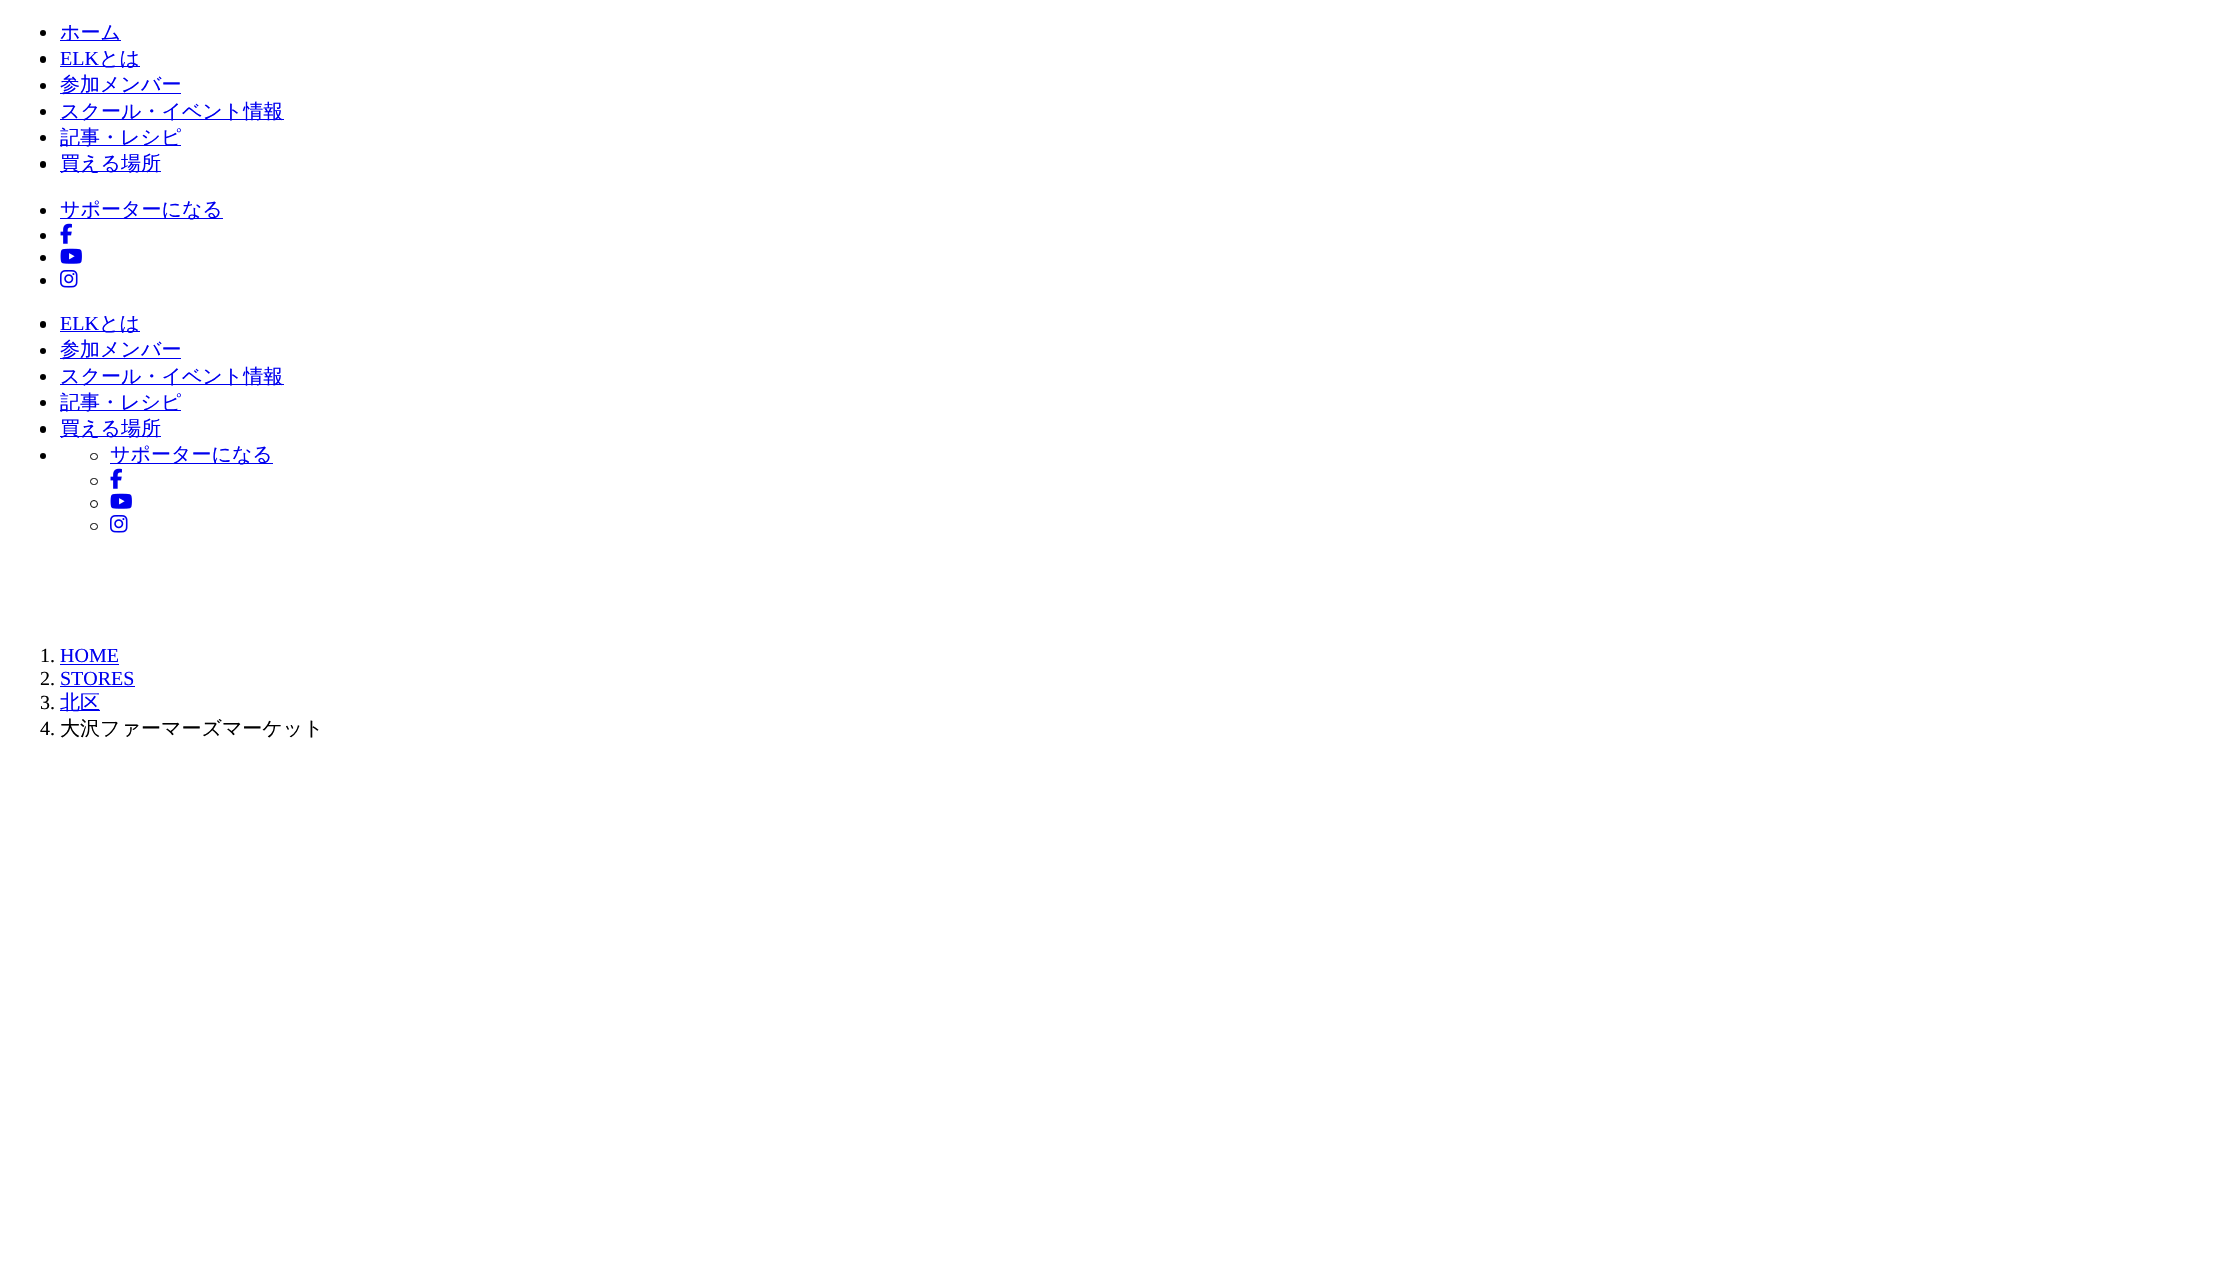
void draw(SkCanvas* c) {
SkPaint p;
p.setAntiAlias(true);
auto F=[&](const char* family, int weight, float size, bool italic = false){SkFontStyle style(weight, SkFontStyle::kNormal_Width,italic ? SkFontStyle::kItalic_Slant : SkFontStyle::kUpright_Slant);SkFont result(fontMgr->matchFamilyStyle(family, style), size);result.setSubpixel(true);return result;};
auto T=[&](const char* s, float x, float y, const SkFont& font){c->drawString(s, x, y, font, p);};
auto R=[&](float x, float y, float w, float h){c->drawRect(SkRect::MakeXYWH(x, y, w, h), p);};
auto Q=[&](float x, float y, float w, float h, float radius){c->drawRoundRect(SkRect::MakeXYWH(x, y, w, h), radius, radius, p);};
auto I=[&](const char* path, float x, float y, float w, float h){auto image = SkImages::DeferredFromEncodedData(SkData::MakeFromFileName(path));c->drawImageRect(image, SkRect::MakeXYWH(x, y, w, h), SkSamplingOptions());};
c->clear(0xffffffff);
p.setColor(0xff000000);
c->drawCircle(43,33,3,p);
p.setColor(0xff0000ee);
R(60,40,61,1);
auto f1 = F("WenQuanYi Zen Hei",500,20);
T("ホーム",60,39,f1);
p.setColor(0xff000000);
Q(40,56,6,7,3);
auto f2 = F("Liberation Serif",400,20);
p.setColor(0xff0000ee);
T("ELK",60,65,f2);
R(60,66,80,1);
T("とは",99,65,f1);
p.setColor(0xff000000);
c->drawCircle(43,86,3,p);
p.setColor(0xff0000ee);
R(60,93,121,1);
T("参加メンバー",60,91,f1);
p.setColor(0xff000000);
c->drawCircle(43,112,3,p);
p.setColor(0xff0000ee);
R(60,119,224,1);
T("スクール・イベント情報",60,118,f1);
p.setColor(0xff000000);
c->drawCircle(43,138,3,p);
p.setColor(0xff0000ee);
R(60,145,121,1);
T("記事・レシピ",60,144,f1);
p.setColor(0xff000000);
Q(40,161,6,7,3);
p.setColor(0xff0000ee);
R(60,171,101,1);
T("買える場所",60,170,f1);
p.setColor(0xff000000);
c->drawCircle(43,211,3,p);
p.setColor(0xff0000ee);
R(60,218,163,1);
T("サポーターになる",60,216,f1);
p.setColor(0xff000000);
c->drawCircle(43,236,3,p);
I("1.png",60,223,12,21);
c->drawCircle(43,258,3,p);
I("2.png",60,248,22,16);
c->drawCircle(43,281,3,p);
I("3.png",60,270,18,18);
Q(40,321,6,7,3);
p.setColor(0xff0000ee);
T("ELK",60,330,f2);
R(60,331,80,1);
T("とは",99,330,f1);
p.setColor(0xff000000);
c->drawCircle(43,351,3,p);
p.setColor(0xff0000ee);
R(60,358,121,1);
T("参加メンバー",60,356,f1);
p.setColor(0xff000000);
c->drawCircle(43,377,3,p);
p.setColor(0xff0000ee);
R(60,384,224,1);
T("スクール・イベント情報",60,383,f1);
p.setColor(0xff000000);
c->drawCircle(43,403,3,p);
p.setColor(0xff0000ee);
R(60,410,121,1);
T("記事・レシピ",60,409,f1);
p.setColor(0xff000000);
Q(40,426,6,7,3);
p.setColor(0xff0000ee);
R(60,436,101,1);
T("買える場所",60,435,f1);
p.setColor(0xff000000);
c->drawCircle(43,456,3,p);
p.setStroke(true);
p.setStrokeWidth(1);
c->drawRoundRect(SkRect::MakeXYWH(90.5,453.5,7,6),3,3,p);
p.setStroke(false);
p.setColor(0xff0000ee);
R(110,463,163,1);
T("サポーターになる",110,461,f1);
p.setStroke(true);
p.setColor(0xff000000);
c->drawRoundRect(SkRect::MakeXYWH(90.5,478.5,7,6),3,3,p);
I("1.png",110,468,12,21);
c->drawCircle(94,504,3.5,p);
I("2.png",110,493,22,16);
c->drawRoundRect(SkRect::MakeXYWH(90.5,523.5,7,6),3,3,p);
I("3.png",110,515,18,18);
p.setStroke(false);
T("1.",40,662,f2);
p.setColor(0xff0000ee);
T("HOME",60,662,f2);
R(60,664,59,1);
p.setColor(0xff000000);
T("2.",40,685,f2);
p.setColor(0xff0000ee);
T("STORES",60,685,f2);
R(60,686,75,1);
p.setColor(0xff000000);
T("3.",40,709,f2);
p.setColor(0xff0000ee);
R(60,710,40,1);
T("北区",60,709,f1);
p.setColor(0xff000000);
T("4.",40,735,f2);
T("大沢ファーマーズマーケット",60,735,f1);
}
